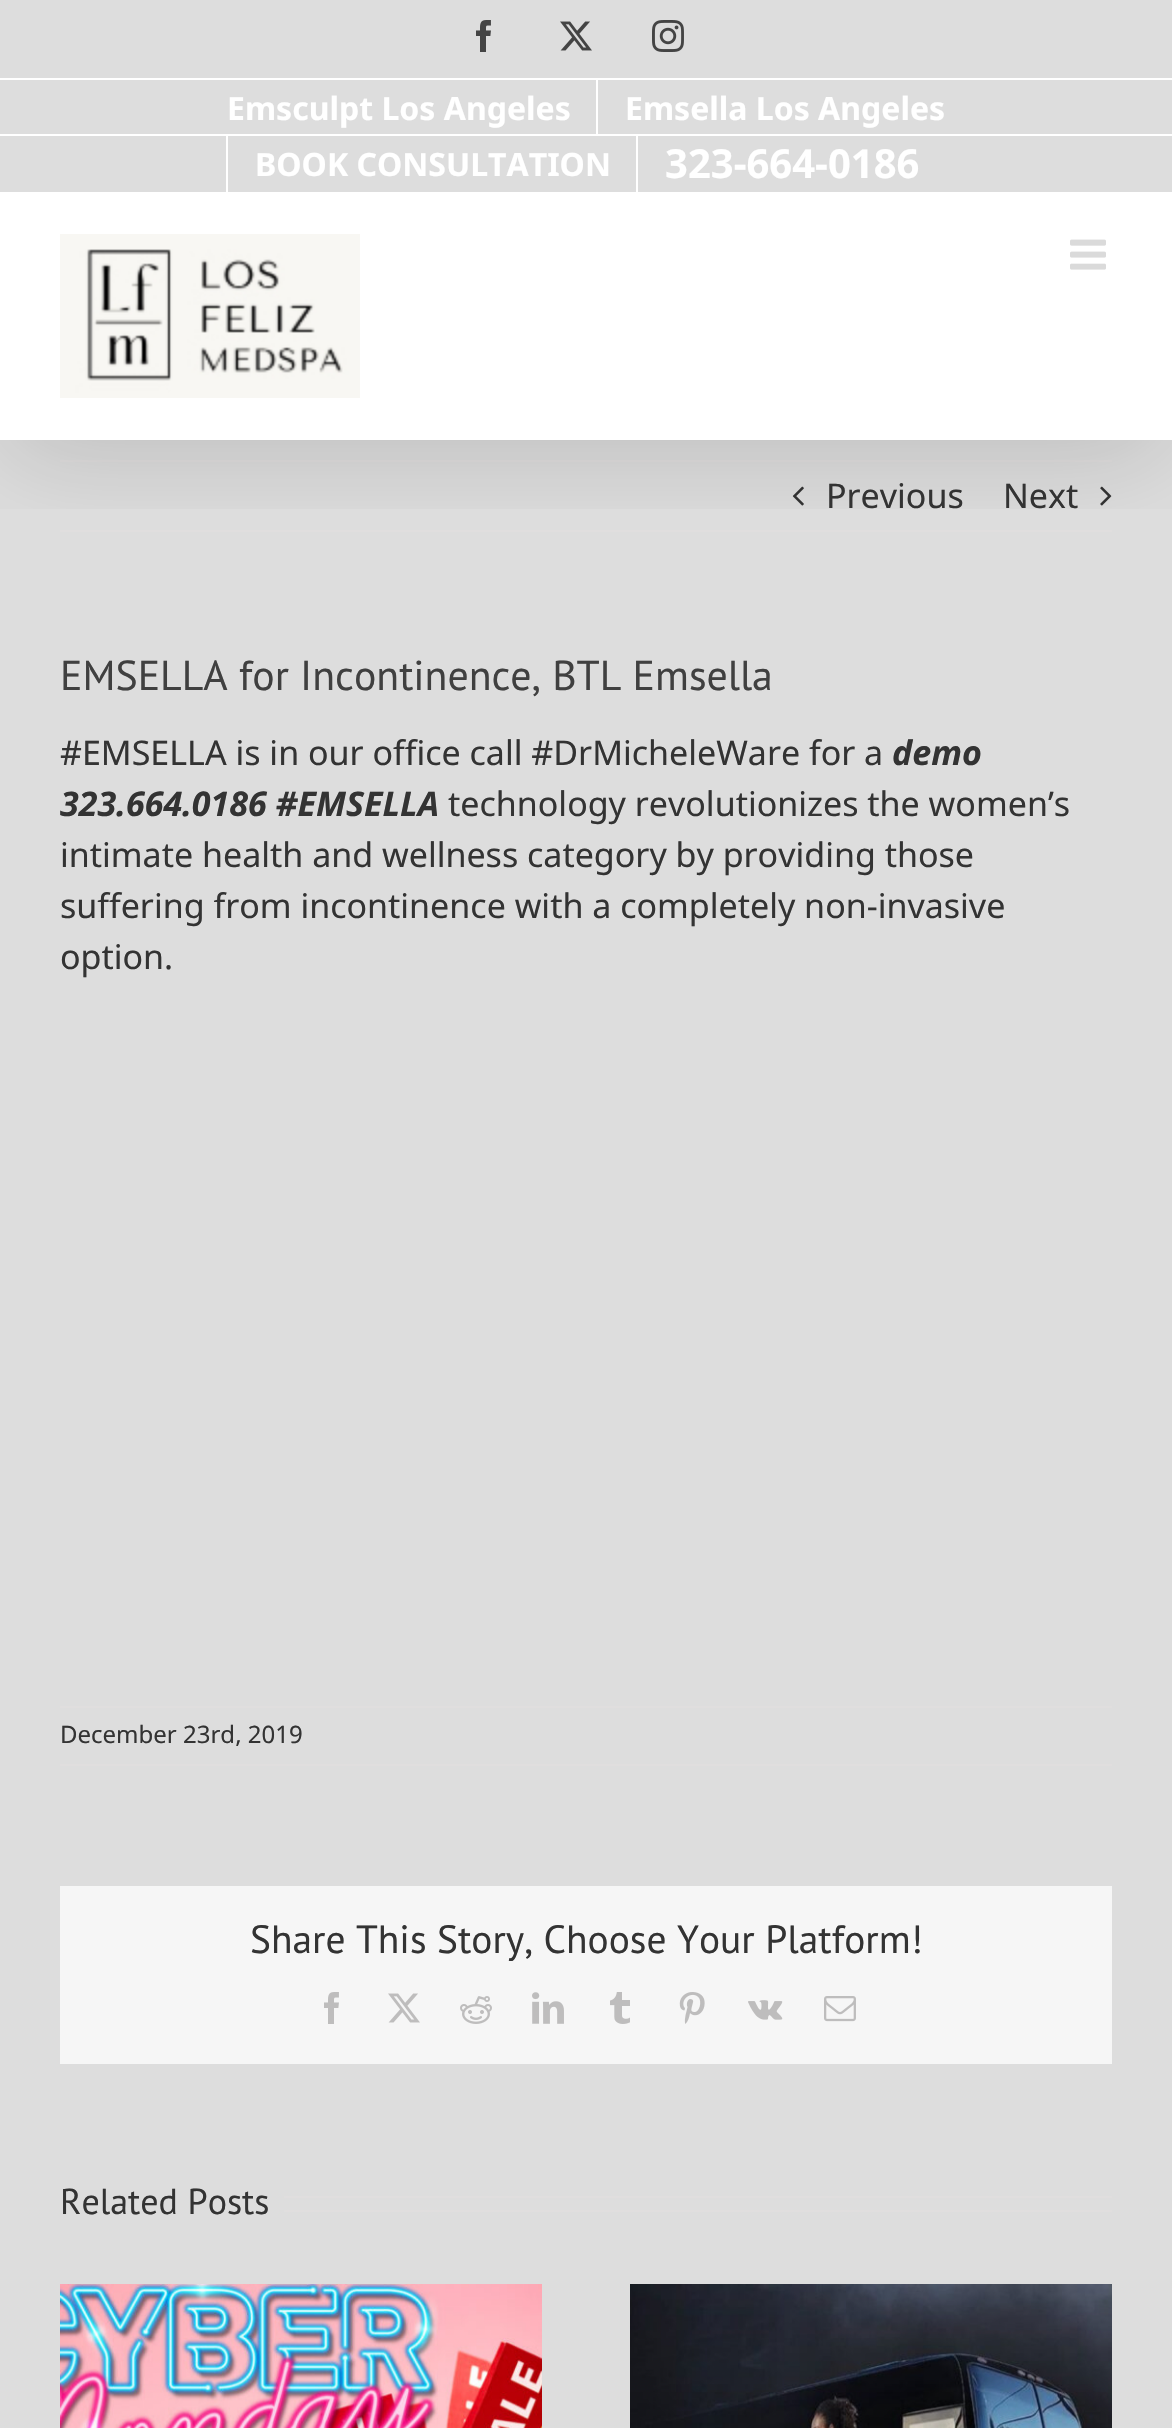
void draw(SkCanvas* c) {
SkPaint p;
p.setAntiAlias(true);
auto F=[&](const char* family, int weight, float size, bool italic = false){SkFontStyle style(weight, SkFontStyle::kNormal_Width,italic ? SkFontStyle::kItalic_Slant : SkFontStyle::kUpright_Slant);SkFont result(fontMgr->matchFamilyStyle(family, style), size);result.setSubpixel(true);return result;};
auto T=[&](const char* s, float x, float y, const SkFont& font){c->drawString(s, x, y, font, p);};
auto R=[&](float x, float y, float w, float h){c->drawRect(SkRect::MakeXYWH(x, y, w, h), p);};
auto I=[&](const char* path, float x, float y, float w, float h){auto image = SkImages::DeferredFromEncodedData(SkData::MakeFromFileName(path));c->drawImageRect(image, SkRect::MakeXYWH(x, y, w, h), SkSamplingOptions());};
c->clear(0xffdddddd);
p.setColor(0xffe0dede);
R(60,460,1052,2);
R(60,530,1052,2);
I("6.png",792,486,12,20);
I("7.png",1100,486,12,20);
c->save();
c->clipRect(SkRect::MakeXYWH(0,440,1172,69));
p.setColor(0x24000000);
p.setMaskFilter(SkMaskFilter::MakeBlur(kNormal_SkBlurStyle, 50));
c->drawRect(SkRect::MakeXYWH(4,24,1164,432),p);
p.setMaskFilter(nullptr);
c->restore();
p.setColor(0xffffffff);
R(0,192,1172,248);
R(0,78,1172,2);
I("1.png",476,20,15,32);
I("2.png",560,21,32,30);
I("3.png",652,20,32,32);
auto f1 = F("Noto Sans",700,32);
T("Emsculpt Los Angeles",227,120,f1);
R(596,80,2,56);
T("Emsella Los Angeles",625,120,f1);
R(0,134,1172,2);
R(226,136,2,56);
T("BOOK CONSULTATION",255,176,f1);
R(636,136,2,56);
auto f2 = F("Noto Sans",700,40);
T("323-664-0186",665,178,f2);
I("4.png",60,234,300,164);
I("5.png",1070,239,36,31);
auto f3 = F("Noto Sans",400,34);
p.setColor(0xff333333);
T("Previous",826,508,f3);
T("Next",1003,508,f3);
auto f4 = F("PT Sans",400,41.8);
p.setColor(0xff404040);
T("EMSELLA for Incontinence, BTL Emsella",60,690,f4);
p.setColor(0xff333333);
T("#EMSELLA is in our office call #DrMicheleWare for a",60,765,f3);
auto f5 = F("Noto Sans",700,34,true);
T("demo",892,765,f5);
T("323.664.0186 #EMSELLA",60,816,f5);
T("technology revolutionizes the women’s",448,816,f3);
T("intimate health and wellness category by providing those",60,867,f3);
T("suffering from incontinence with a completely non-invasive",60,918,f3);
T("option.",60,969,f3);
p.setColor(0xffe0dede);
R(60,1706,1052,2);
R(60,1764,1052,2);
auto f6 = F("Noto Sans",400,24);
p.setColor(0xff333333);
T("December 23rd, 2019",60,1743,f6);
p.setColor(0xfff6f6f6);
R(60,1886,1052,178);
auto f7 = F("PT Sans",400,39.4);
p.setColor(0xff333333);
T("Share This Story, Choose Your Platform!",250,1953,f7);
I("8.png",324,1992,15,32);
I("9.png",388,1993,32,30);
I("10.png",460,1996,32,28);
I("11.png",532,1992,32,32);
I("12.png",610,1992,20,32);
I("13.png",679,1992,26,32);
I("14.png",748,2000,35,20);
I("15.png",824,1996,32,26);
auto f8 = F("PT Sans",400,36);
T("Related Posts",60,2214,f8);
p.setColor(0xffe0dede);
R(284,2196,828,2);
R(284,2210,828,2);
I("16.png",60,2284,482,144);
I("17.png",630,2284,482,144);
}
